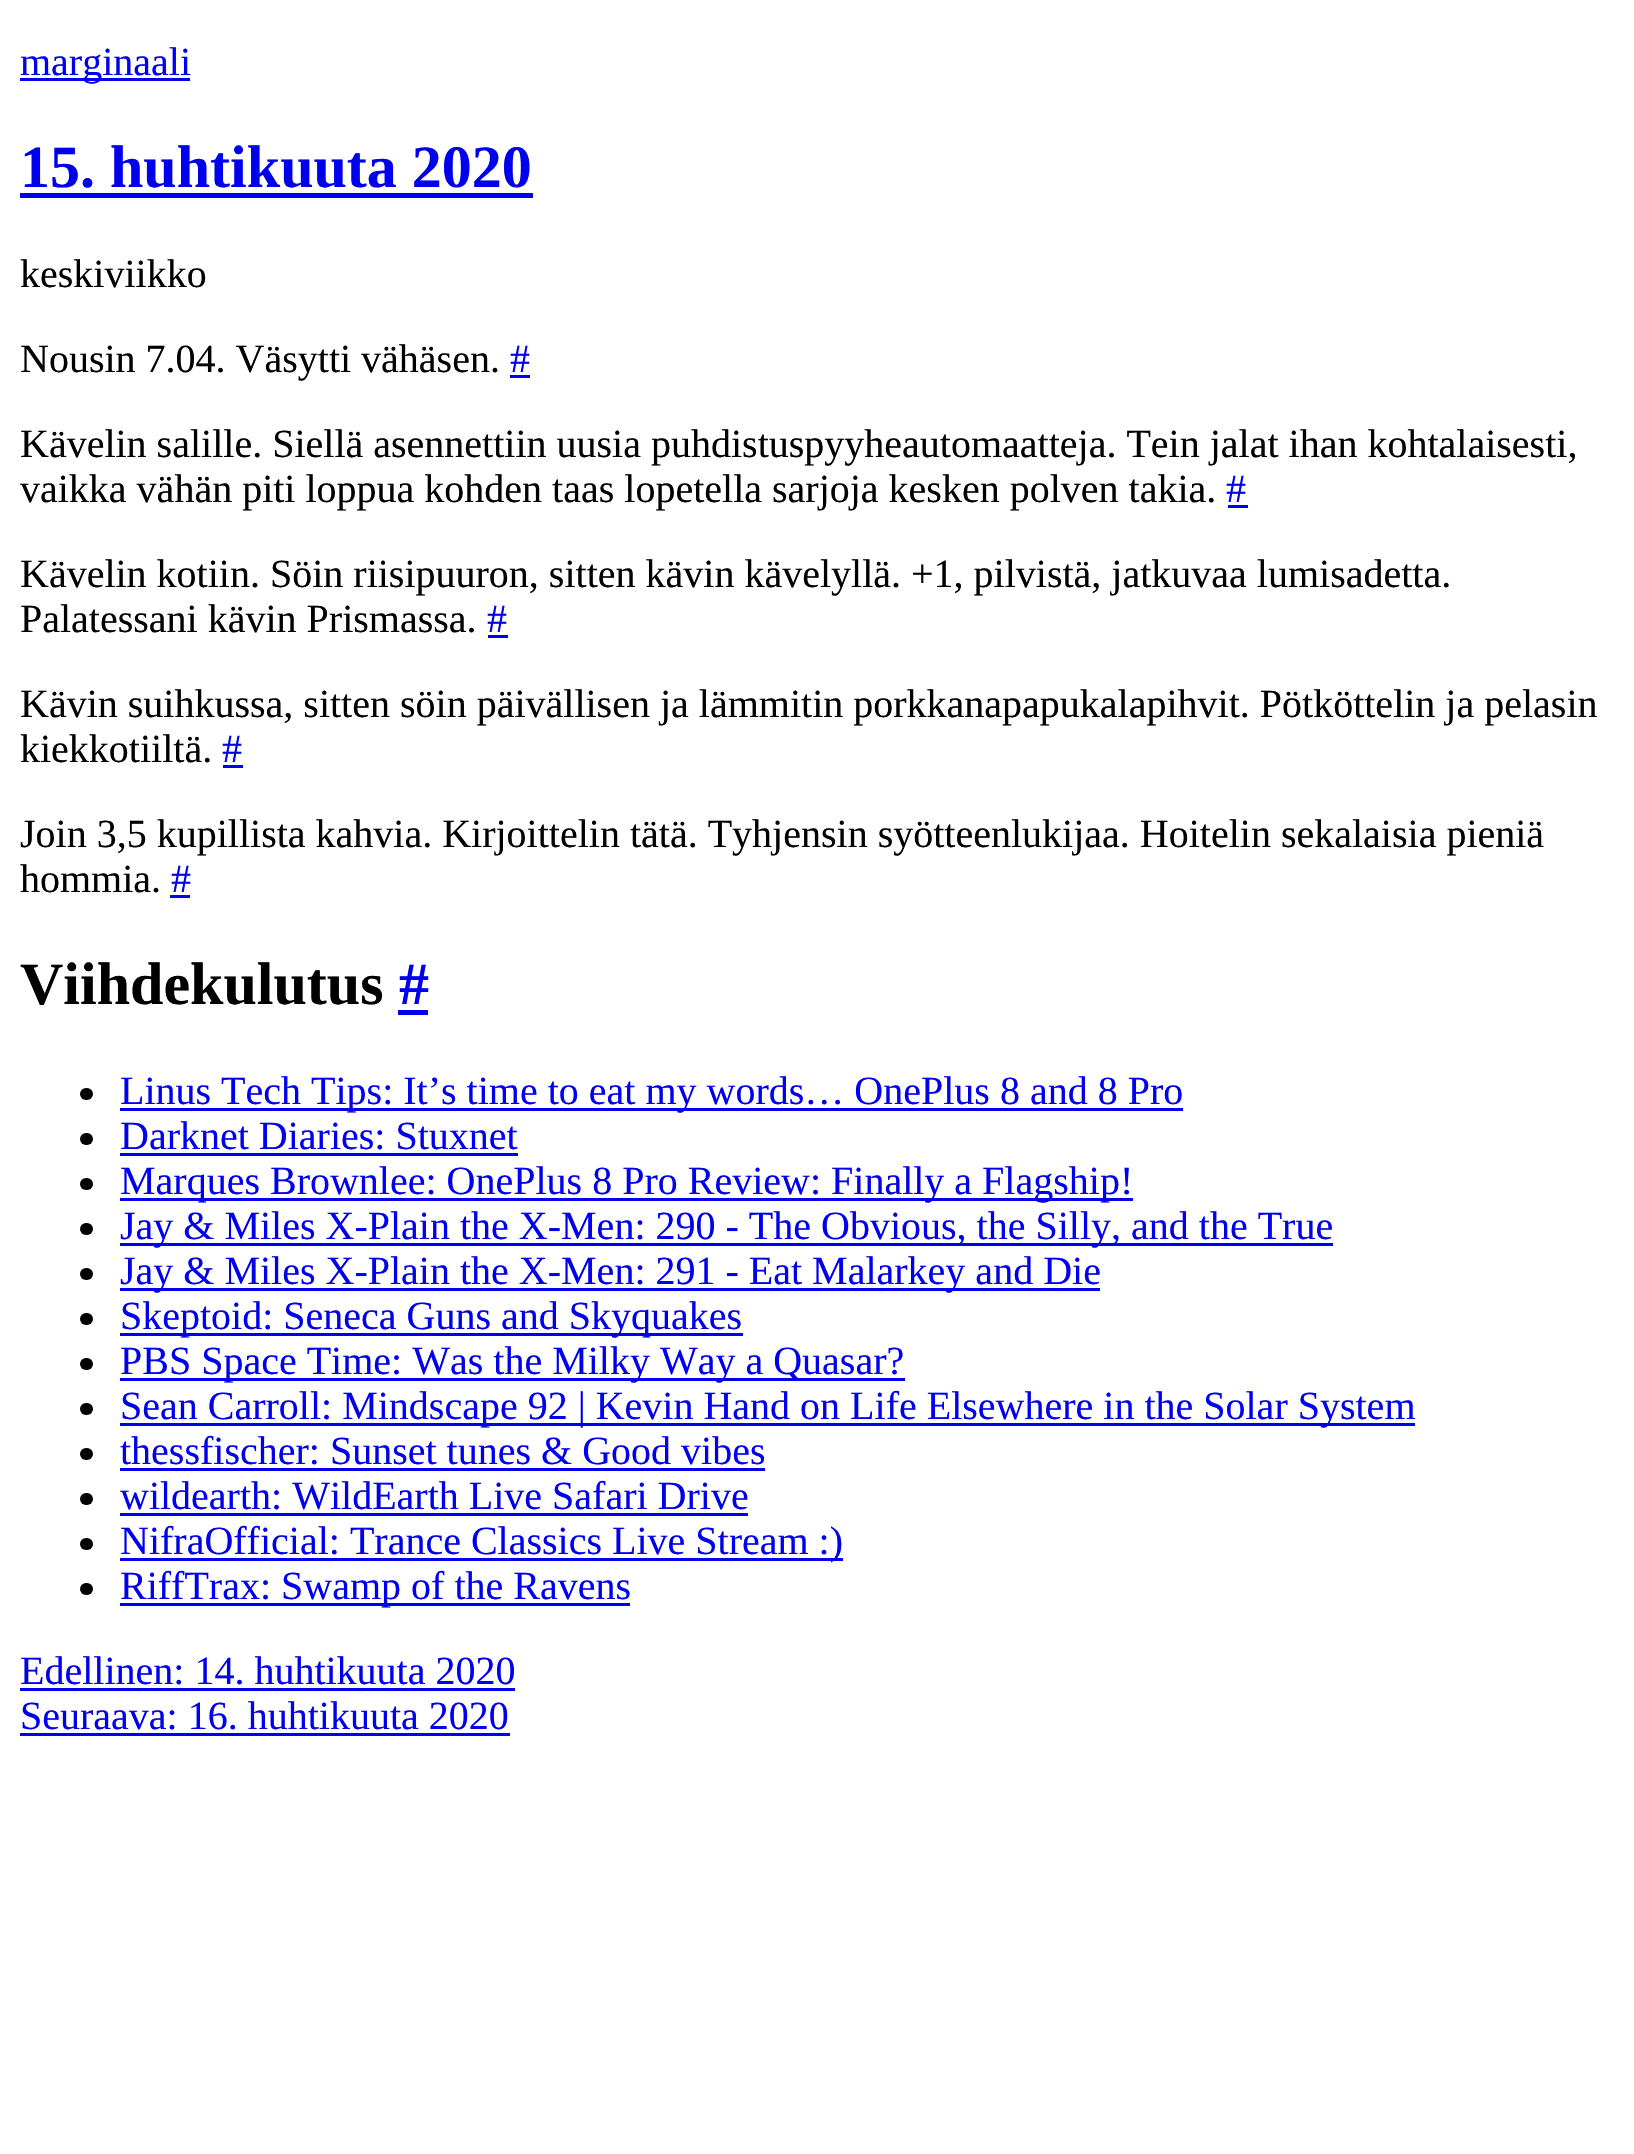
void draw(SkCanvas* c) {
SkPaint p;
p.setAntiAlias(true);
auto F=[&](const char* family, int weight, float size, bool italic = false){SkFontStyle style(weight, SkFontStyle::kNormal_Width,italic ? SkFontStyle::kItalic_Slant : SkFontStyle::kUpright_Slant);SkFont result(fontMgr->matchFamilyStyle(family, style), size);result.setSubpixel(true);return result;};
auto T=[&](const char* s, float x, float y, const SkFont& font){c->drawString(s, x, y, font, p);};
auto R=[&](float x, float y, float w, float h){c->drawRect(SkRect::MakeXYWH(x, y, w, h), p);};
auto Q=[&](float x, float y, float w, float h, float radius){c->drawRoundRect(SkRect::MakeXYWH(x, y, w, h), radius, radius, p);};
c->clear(0xffffffff);
p.setColor(0xff0000ee);
R(20,78,170,3);
auto f1 = F("Liberation Serif",400,40);
T("marginaali",20,75,f1);
auto f2 = F("Liberation Serif",700,60);
T("15. huhtikuuta 2020",20,187,f2);
R(20,193,513,5);
p.setColor(0xff000000);
T("keskiviikko",20,287,f1);
T("Nousin 7.04. Väsytti vähäsen.",20,372,f1);
p.setColor(0xff0000ee);
T("#",510,372,f1);
R(510,375,20,3);
p.setColor(0xff000000);
T("Kävelin salille. Siellä asennettiin uusia puhdistuspyyheautomaatteja. Tein jalat ihan kohtalaisesti,",20,457,f1);
T("vaikka vähän piti loppua kohden taas lopetella sarjoja kesken polven takia.",20,502,f1);
p.setColor(0xff0000ee);
T("#",1226,502,f1);
R(1228,505,20,3);
p.setColor(0xff000000);
T("Kävelin kotiin. Söin riisipuuron, sitten kävin kävelyllä. +1, pilvistä, jatkuvaa lumisadetta.",20,587,f1);
T("Palatessani kävin Prismassa.",20,632,f1);
p.setColor(0xff0000ee);
T("#",487,632,f1);
R(488,635,20,3);
p.setColor(0xff000000);
T("Kävin suihkussa, sitten söin päivällisen ja lämmitin porkkanapapukalapihvit. Pötköttelin ja pelasin",20,717,f1);
T("kiekkotiiltä.",20,762,f1);
p.setColor(0xff0000ee);
T("#",222,762,f1);
R(223,765,20,3);
p.setColor(0xff000000);
T("Join 3,5 kupillista kahvia. Kirjoittelin tätä. Tyhjensin syötteenlukijaa. Hoitelin sekalaisia pieniä",20,847,f1);
T("hommia.",20,892,f1);
p.setColor(0xff0000ee);
T("#",171,892,f1);
R(170,895,20,3);
p.setColor(0xff000000);
T("Viihdekulutus",20,1004,f2);
p.setColor(0xff0000ee);
T("#",399,1004,f2);
R(398,1010,30,5);
p.setColor(0xff000000);
Q(80,1088,13,12,6);
p.setColor(0xff0000ee);
R(120,1108,1063,3);
T("Linus Tech Tips: It’s time to eat my words… OnePlus 8 and 8 Pro",120,1104,f1);
p.setColor(0xff000000);
Q(80,1133,13,12,6);
p.setColor(0xff0000ee);
T("Darknet Diaries: Stuxnet",120,1149,f1);
R(120,1153,398,3);
p.setColor(0xff000000);
Q(80,1178,13,12,6);
p.setColor(0xff0000ee);
R(120,1198,1013,3);
T("Marques Brownlee: OnePlus 8 Pro Review: Finally a Flagship!",120,1194,f1);
p.setColor(0xff000000);
Q(80,1223,13,12,6);
p.setColor(0xff0000ee);
R(120,1243,1213,3);
T("Jay & Miles X-Plain the X-Men: 290 - The Obvious, the Silly, and the True",120,1239,f1);
p.setColor(0xff000000);
Q(80,1268,13,12,6);
p.setColor(0xff0000ee);
R(120,1288,980,3);
T("Jay & Miles X-Plain the X-Men: 291 - Eat Malarkey and Die",120,1284,f1);
p.setColor(0xff000000);
Q(80,1313,13,12,6);
p.setColor(0xff0000ee);
R(120,1333,623,3);
T("Skeptoid: Seneca Guns and Skyquakes",120,1329,f1);
p.setColor(0xff000000);
Q(80,1358,13,12,6);
p.setColor(0xff0000ee);
R(120,1378,785,3);
T("PBS Space Time: Was the Milky Way a Quasar?",120,1374,f1);
p.setColor(0xff000000);
Q(80,1403,13,12,6);
p.setColor(0xff0000ee);
R(120,1423,1295,3);
T("Sean Carroll: Mindscape 92 | Kevin Hand on Life Elsewhere in the Solar System",120,1419,f1);
p.setColor(0xff000000);
Q(80,1448,13,12,6);
p.setColor(0xff0000ee);
T("thessfischer: Sunset tunes & Good vibes",120,1464,f1);
R(120,1468,645,3);
p.setColor(0xff000000);
Q(80,1493,13,12,6);
p.setColor(0xff0000ee);
T("wildearth: WildEarth Live Safari Drive",120,1509,f1);
R(120,1513,628,3);
p.setColor(0xff000000);
Q(80,1538,13,12,6);
p.setColor(0xff0000ee);
R(120,1558,723,3);
T("NifraOfficial: Trance Classics Live Stream :)",120,1554,f1);
p.setColor(0xff000000);
Q(80,1583,13,12,6);
p.setColor(0xff0000ee);
R(120,1603,510,3);
T("RiffTrax: Swamp of the Ravens",120,1599,f1);
T("Edellinen: 14. huhtikuuta 2020",20,1684,f1);
R(20,1688,495,3);
T("Seuraava: 16. huhtikuuta 2020",20,1729,f1);
R(20,1733,490,3);
}
